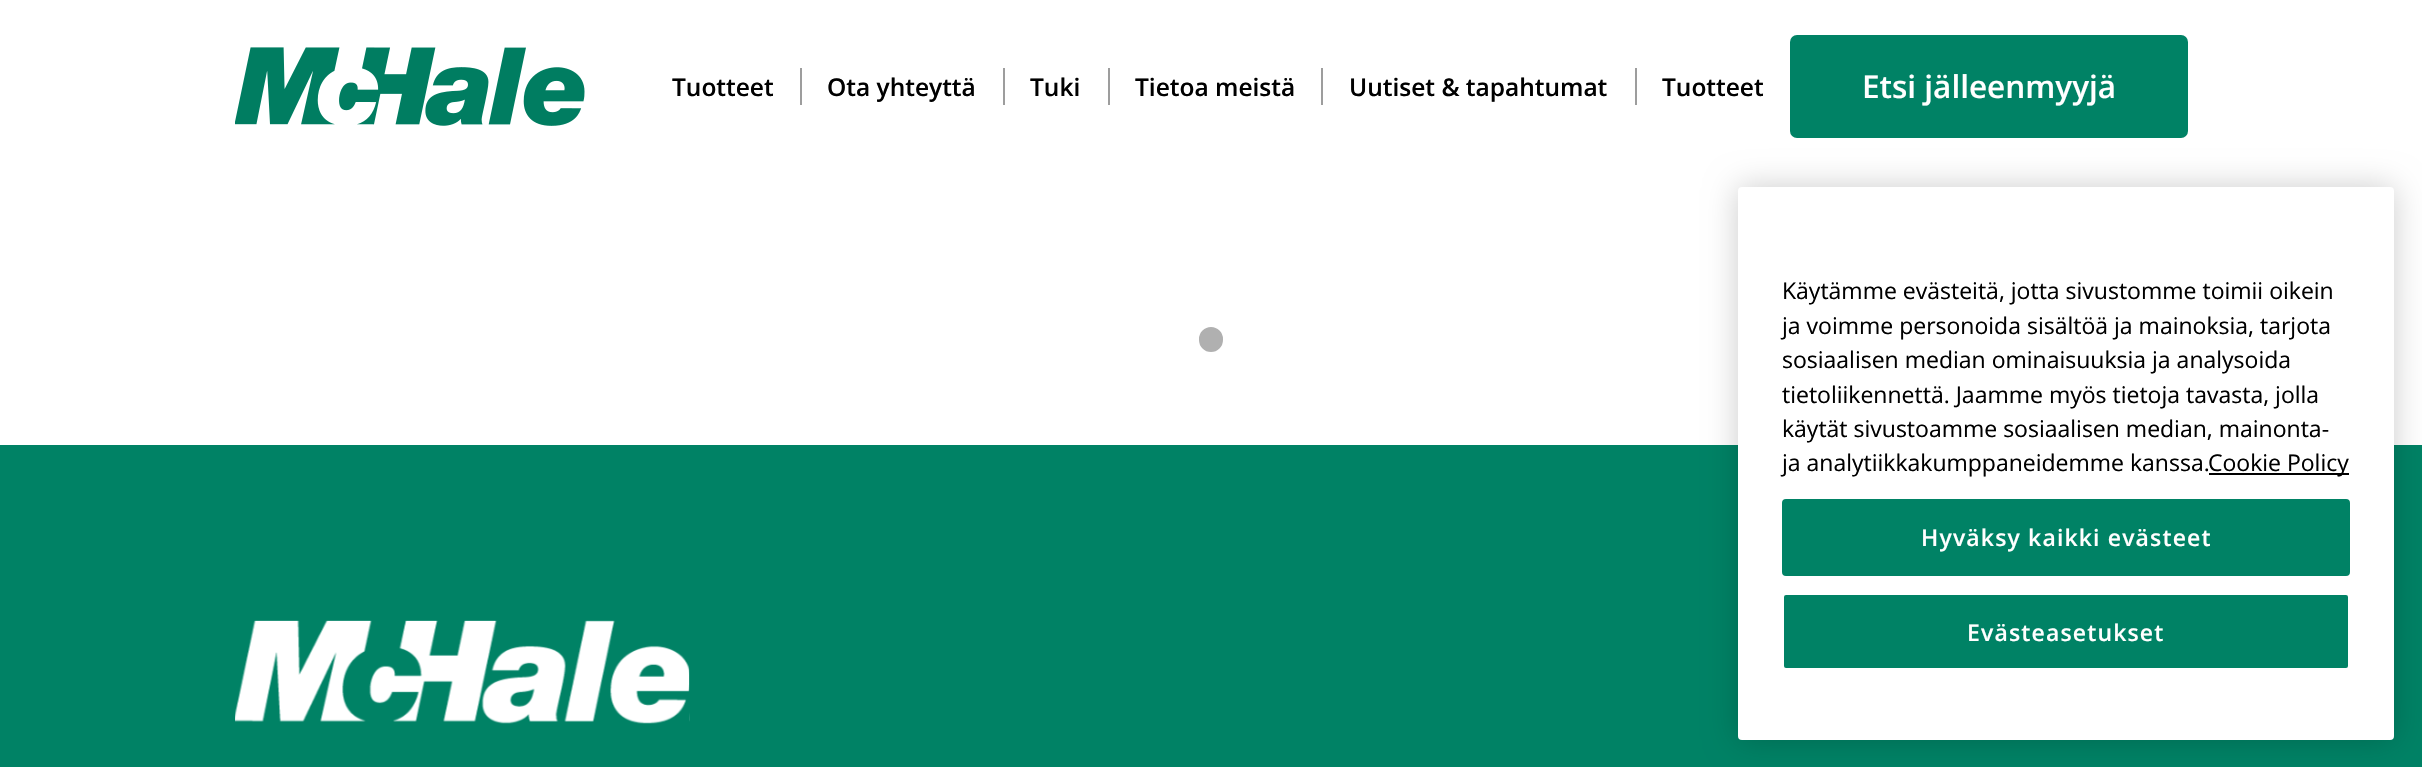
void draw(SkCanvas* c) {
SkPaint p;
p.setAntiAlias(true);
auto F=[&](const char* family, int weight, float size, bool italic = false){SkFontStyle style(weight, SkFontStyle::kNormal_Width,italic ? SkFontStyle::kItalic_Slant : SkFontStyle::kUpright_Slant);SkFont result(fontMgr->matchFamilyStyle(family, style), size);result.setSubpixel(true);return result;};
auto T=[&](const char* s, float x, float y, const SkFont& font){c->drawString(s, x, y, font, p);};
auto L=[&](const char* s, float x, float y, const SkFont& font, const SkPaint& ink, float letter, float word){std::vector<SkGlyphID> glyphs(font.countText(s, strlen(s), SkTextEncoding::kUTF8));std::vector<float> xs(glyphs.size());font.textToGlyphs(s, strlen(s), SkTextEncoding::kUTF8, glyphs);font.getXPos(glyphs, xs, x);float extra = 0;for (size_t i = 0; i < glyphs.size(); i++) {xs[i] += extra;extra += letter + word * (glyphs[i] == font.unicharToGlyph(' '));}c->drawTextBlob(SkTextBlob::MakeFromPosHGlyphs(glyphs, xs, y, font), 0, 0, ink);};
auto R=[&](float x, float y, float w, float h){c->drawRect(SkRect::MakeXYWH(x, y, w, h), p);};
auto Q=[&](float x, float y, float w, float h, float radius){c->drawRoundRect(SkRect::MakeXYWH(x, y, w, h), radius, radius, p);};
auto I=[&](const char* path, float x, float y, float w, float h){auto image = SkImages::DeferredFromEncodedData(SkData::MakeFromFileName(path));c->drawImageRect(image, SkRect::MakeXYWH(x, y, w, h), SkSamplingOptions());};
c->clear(0xffffffff);
I("1.png",235,47,350,79);
p.setColor(0xff9d9d9d);
R(800,68,2,37);
auto f1 = F("Open Sans",600,24.5);
p.setColor(0xff000000);
T("Tuotteet",672,96,f1);
p.setColor(0xff9d9d9d);
R(1003,68,2,37);
p.setColor(0xff000000);
T("Ota yhteyttä",827,96,f1);
p.setColor(0xff9d9d9d);
R(1108,68,2,37);
p.setColor(0xff000000);
T("Tuki",1030,96,f1);
p.setColor(0xff9d9d9d);
R(1321,68,2,37);
p.setColor(0xff000000);
T("Tietoa meistä",1135,96,f1);
p.setColor(0xff9d9d9d);
R(1635,68,2,37);
p.setColor(0xff000000);
T("Uutiset & tapahtumat",1349,96,f1);
T("Tuotteet",1662,96,f1);
p.setColor(0xff008265);
Q(1790,35,398,103,7);
auto f2 = F("Open Sans",600,31.5);
p.setColor(0xffffffff);
T("Etsi jälleenmyyjä",1862,98,f2);
p.setColor(0xffb0b0b0);
c->drawRoundRect(SkRect::MakeXYWH(1200,328,22,23),11,11,p);
p.setStroke(true);
p.setStrokeWidth(2);
c->drawRoundRect(SkRect::MakeXYWH(1200,328,22,23),11,11,p);
p.setStroke(false);
p.setColor(0xff008265);
R(0,445,2422,322);
p.setColor(0x33000000);
p.setMaskFilter(SkMaskFilter::MakeBlur(kNormal_SkBlurStyle, 16));
c->drawRoundRect(SkRect::MakeXYWH(1738,187,656,553),4,4,p);
p.setMaskFilter(nullptr);
p.setColor(0xffffffff);
Q(1738,187,656,553,4);
auto f3 = F("Open Sans",400,23);
p.setColor(0xff000000);
T("Käytämme evästeitä, jotta sivustomme toimii oikein",1782,299,f3);
T("ja voimme personoida sisältöä ja mainoksia, tarjota",1782,334,f3);
T("sosiaalisen median ominaisuuksia ja analysoida",1782,368,f3);
T("tietoliikennettä. Jaamme myös tietoja tavasta, jolla",1782,403,f3);
T("käytät sivustoamme sosiaalisen median, mainonta-",1782,437,f3);
T("ja analytiikkakumppaneidemme kanssa.",1782,471,f3);
R(2209,473,140,2);
T("Cookie Policy",2208,471,f3);
p.setColor(0xff008265);
c->drawRoundRect(SkRect::MakeXYWH(1783,500,566,75),3,3,p);
p.setStroke(true);
c->drawRoundRect(SkRect::MakeXYWH(1783,500,566,75),3,3,p);
auto f4 = F("Open Sans",600,23);
p.setStroke(false);
p.setColor(0xffffffff);
L("Hyväksy kaikki evästeet",1921,546,f4,p,1.15,0);
p.setColor(0xff008265);
c->drawRoundRect(SkRect::MakeXYWH(1783,594,566,75),3,3,p);
p.setStroke(true);
p.setColor(0xffffffff);
c->drawRoundRect(SkRect::MakeXYWH(1783,594,566,75),3,3,p);
p.setStroke(false);
L("Evästeasetukset",1967,641,f4,p,1.15,0);
I("2.png",235,620,455,104);
}
